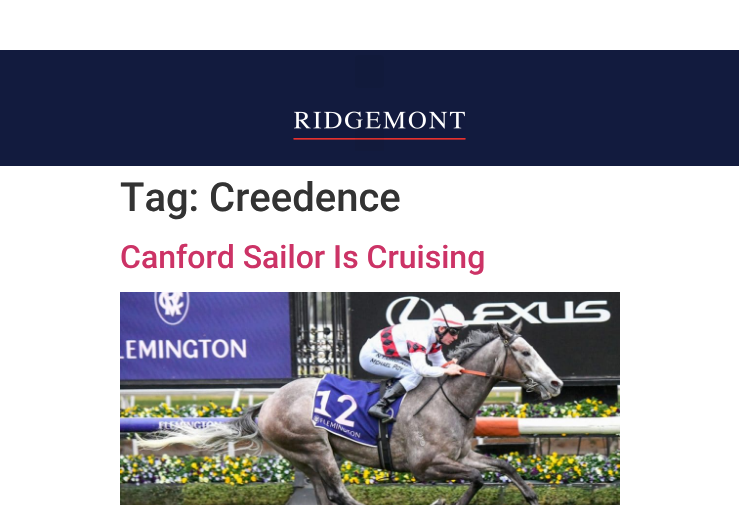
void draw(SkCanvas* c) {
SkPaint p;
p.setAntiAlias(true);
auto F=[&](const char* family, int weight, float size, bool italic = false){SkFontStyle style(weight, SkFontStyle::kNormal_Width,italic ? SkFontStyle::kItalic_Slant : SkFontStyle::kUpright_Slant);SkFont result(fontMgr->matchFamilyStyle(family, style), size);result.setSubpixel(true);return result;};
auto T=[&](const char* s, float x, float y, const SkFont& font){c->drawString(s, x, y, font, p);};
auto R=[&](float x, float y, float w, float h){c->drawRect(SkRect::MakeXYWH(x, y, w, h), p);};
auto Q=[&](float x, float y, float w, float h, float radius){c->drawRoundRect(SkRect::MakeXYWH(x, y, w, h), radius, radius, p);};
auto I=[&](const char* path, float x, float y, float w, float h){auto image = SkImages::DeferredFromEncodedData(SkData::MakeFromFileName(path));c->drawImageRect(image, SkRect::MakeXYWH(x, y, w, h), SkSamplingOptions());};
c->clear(0xffffffff);
p.setColor(0xff121b3e);
R(0,50,739,116);
p.setColor(0xff111a3b);
Q(355,55,29,33,3);
I("1.png",293,111,173,29);
p.setColor(0x0d000000);
R(355,118,29,33);
auto f1 = F("Roboto",500,40);
p.setColor(0xff333333);
T("Tag: Creedence",120,211,f1);
auto f2 = F("Roboto",500,32);
p.setColor(0xffcc3366);
T("Canford Sailor Is Cruising",120,268,f2);
I("2.png",120,292,500,213);
}
